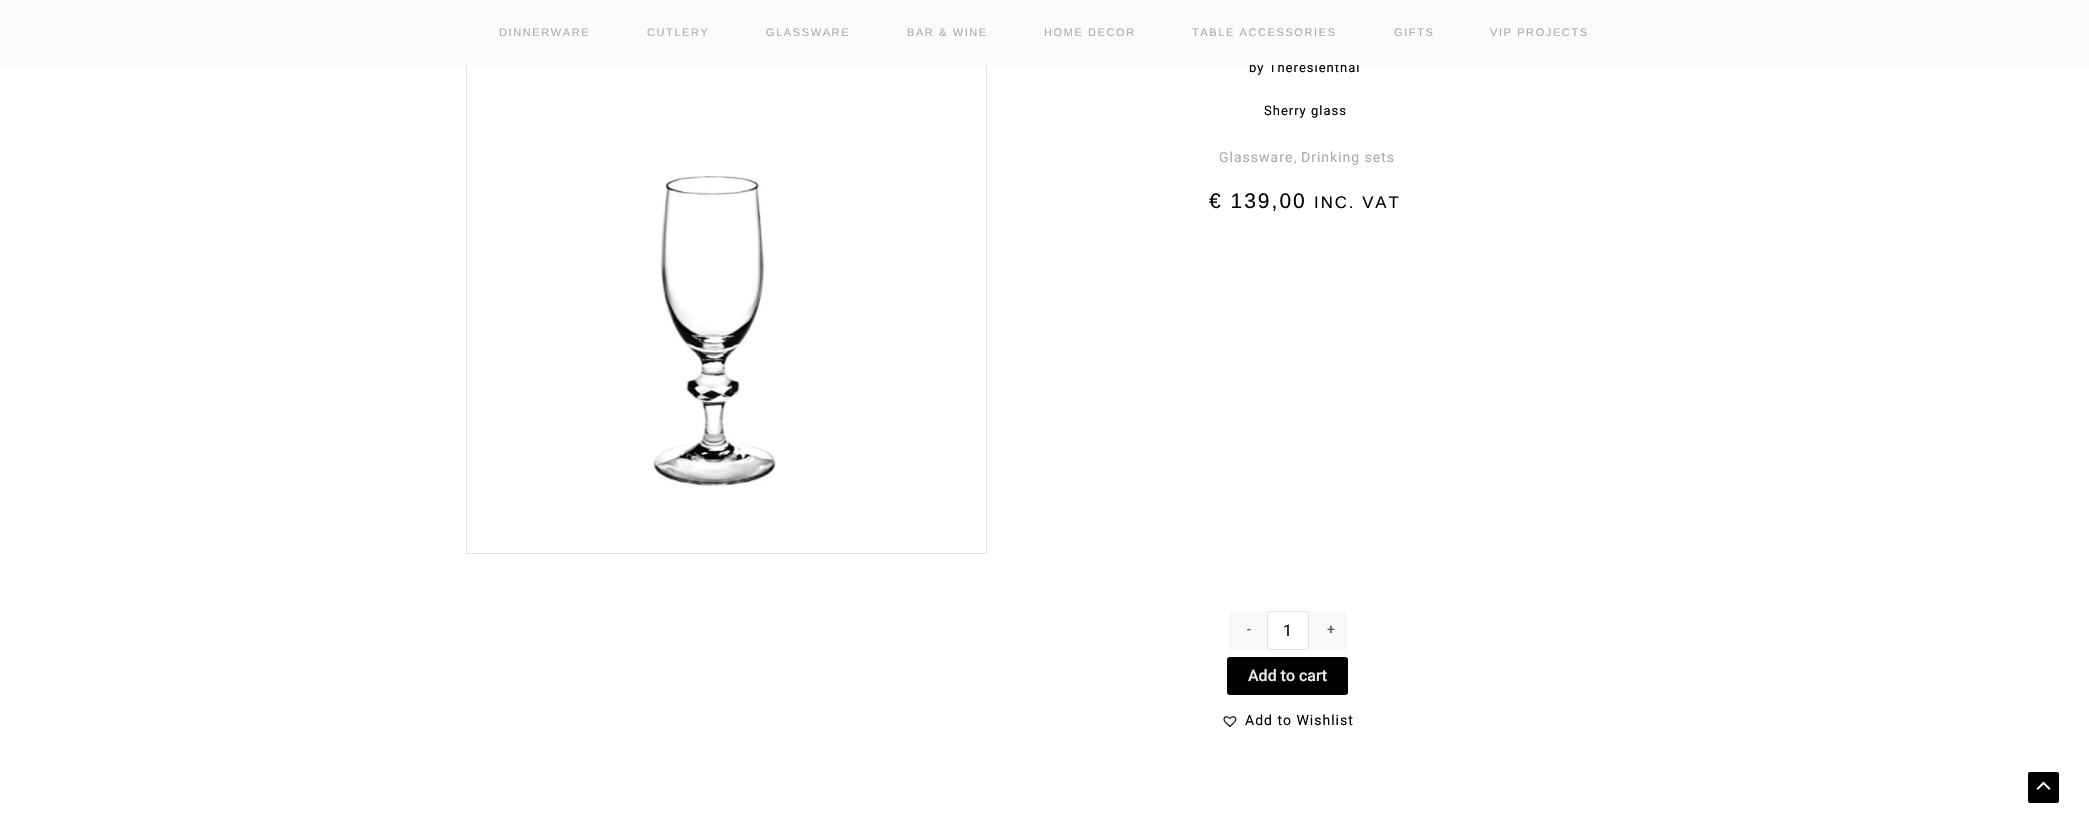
void draw(SkCanvas* c) {
SkPaint p;
p.setAntiAlias(true);
auto F=[&](const char* family, int weight, float size, bool italic = false){SkFontStyle style(weight, SkFontStyle::kNormal_Width,italic ? SkFontStyle::kItalic_Slant : SkFontStyle::kUpright_Slant);SkFont result(fontMgr->matchFamilyStyle(family, style), size);result.setSubpixel(true);return result;};
auto T=[&](const char* s, float x, float y, const SkFont& font){c->drawString(s, x, y, font, p);};
auto L=[&](const char* s, float x, float y, const SkFont& font, const SkPaint& ink, float letter, float word){std::vector<SkGlyphID> glyphs(font.countText(s, strlen(s), SkTextEncoding::kUTF8));std::vector<float> xs(glyphs.size());font.textToGlyphs(s, strlen(s), SkTextEncoding::kUTF8, glyphs);font.getXPos(glyphs, xs, x);float extra = 0;for (size_t i = 0; i < glyphs.size(); i++) {xs[i] += extra;extra += letter + word * (glyphs[i] == font.unicharToGlyph(' '));}c->drawTextBlob(SkTextBlob::MakeFromPosHGlyphs(glyphs, xs, y, font), 0, 0, ink);};
auto R=[&](float x, float y, float w, float h){c->drawRect(SkRect::MakeXYWH(x, y, w, h), p);};
auto Q=[&](float x, float y, float w, float h, float radius){c->drawRoundRect(SkRect::MakeXYWH(x, y, w, h), radius, radius, p);};
auto I=[&](const char* path, float x, float y, float w, float h){auto image = SkImages::DeferredFromEncodedData(SkData::MakeFromFileName(path));c->drawImageRect(image, SkRect::MakeXYWH(x, y, w, h), SkSamplingOptions());};
c->clear(0xffffffff);
p.setStroke(true);
p.setStrokeWidth(1);
p.setColor(0xffe1e1e1);
c->drawRect(SkRect::MakeXYWH(466.5,33.5,520,520),p);
auto f1 = F("Roboto",400,13);
p.setStroke(false);
p.setColor(0xff000000);
L("by Theresienthal",1249,72,f1,p,1,0);
p.setColor(0xfffbfbfb);
R(0,1,2089,63);
p.setColor(0xfff8f8f8);
R(0,0,2089,1);
R(0,64,2089,1);
auto f2 = F("Liberation Sans",400,11);
p.setColor(0xffababab);
L("DINNERWARE",499,36,f2,p,1.6,0);
L("CUTLERY",647,36,f2,p,1.6,0);
L("GLASSWARE",766,36,f2,p,1.6,0);
L("BAR & WINE",907,36,f2,p,1.6,0);
L("HOME DECOR",1044,36,f2,p,1.6,0);
L("TABLE ACCESSORIES",1192,36,f2,p,1.6,0);
L("GIFTS",1394,36,f2,p,1.6,0);
L("VIP PROJECTS",1490,36,f2,p,1.6,0);
I("1.png",653,176,123,311);
p.setColor(0xff000000);
L("Sherry glass",1264,115,f1,p,1,0);
auto f3 = F("Roboto",400,14);
p.setColor(0xffababab);
L("Glassware",1219,162,f3,p,1,0);
auto f4 = F("Roboto",400,12);
L(",",1294,162,f4,p,1,0);
L("Drinking sets",1301,162,f3,p,1,0);
auto f5 = F("Liberation Sans",400,21);
p.setColor(0xff000000);
L("€ 139,00",1209,208,f5,p,2,0);
auto f6 = F("Liberation Sans",400,16.75);
L("INC. VAT",1314,208,f6,p,2,0);
p.setColor(0xfff8f8f8);
R(1229,611,38,39);
p.setColor(0xff334155);
L("-",1247,634,f3,p,1,0);
p.setStroke(true);
p.setColor(0xffe1e1e1);
c->drawRoundRect(SkRect::MakeXYWH(1267.5,611.5,41,38),2.5,2.5,p);
auto f7 = F("Roboto",400,16);
p.setStroke(false);
p.setColor(0xff000000);
T("1",1283,636,f7);
p.setColor(0xfff8f8f8);
R(1309,611,38,39);
p.setColor(0xff334155);
L("+",1327,634,f3,p,1,0);
p.setColor(0xff000000);
Q(1227,657,121,38,3);
auto f8 = F("Roboto",500,16);
p.setColor(0xffebebeb);
T("Add to cart",1248,681,f8);
I("2.png",1223,716,14,12);
p.setColor(0xff000000);
L("Add to Wishlist",1245,725,f3,p,1,0);
Q(2028,772,31,31,2);
I("3.png",2036,781,15,9);
}
